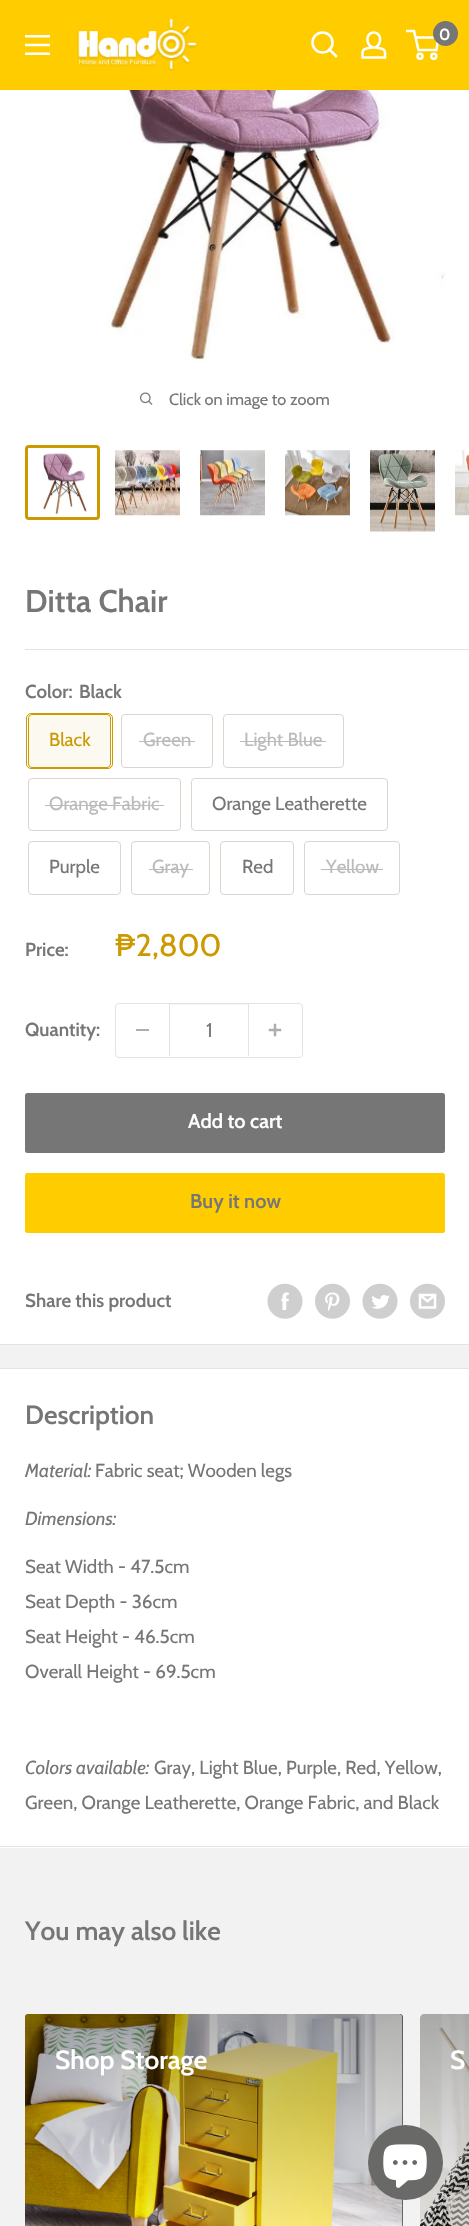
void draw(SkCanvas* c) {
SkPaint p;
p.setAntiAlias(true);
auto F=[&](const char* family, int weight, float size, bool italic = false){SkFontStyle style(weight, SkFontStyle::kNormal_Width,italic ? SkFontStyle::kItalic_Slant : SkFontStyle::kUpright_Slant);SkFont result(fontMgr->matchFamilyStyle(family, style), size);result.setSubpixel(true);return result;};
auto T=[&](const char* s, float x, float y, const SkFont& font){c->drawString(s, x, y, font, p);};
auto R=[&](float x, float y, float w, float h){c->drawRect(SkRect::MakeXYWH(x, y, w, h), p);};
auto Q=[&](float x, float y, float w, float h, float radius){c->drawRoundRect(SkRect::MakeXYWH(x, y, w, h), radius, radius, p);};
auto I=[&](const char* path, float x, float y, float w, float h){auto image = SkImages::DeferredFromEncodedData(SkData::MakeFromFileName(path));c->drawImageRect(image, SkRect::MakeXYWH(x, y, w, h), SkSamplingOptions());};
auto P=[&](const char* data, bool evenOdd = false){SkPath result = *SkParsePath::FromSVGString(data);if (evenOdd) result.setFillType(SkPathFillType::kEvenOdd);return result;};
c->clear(0xfff2f2f2);
p.setColor(0xffffcc00);
R(0,0,469,90);
I("1.png",25,35,25,20);
I("2.png",77,19,120,52);
p.setStroke(true);
p.setStrokeWidth(2.6);
p.setStrokeCap(SkPaint::kSquare_Cap);
p.setColor(0xffffffff);
c->drawPath(P("M336 56l-6.5-6.5"),p);
p.setStrokeCap(SkPaint::kButt_Cap);
c->drawCircle(322.5,42.5,10,p);
I("3.png",361,31,26,28);
p.setStrokeWidth(2.5);
c->drawCircle(420,56.2,2.5,p);
c->drawCircle(433.8,56.2,2.5,p);
c->drawPath(P("M415.5 37.5h22.5l-1.5 12.5h-18l-4.5-19h-8"),p);
p.setStroke(false);
p.setColor(0xff767676);
c->drawCircle(445.5,33.5,12.5,p);
auto f1 = F("Cabin",600,16);
p.setColor(0xffffffff);
T("0",439,40,f1);
R(0,90,469,1254);
I("4.png",109,90,336,271);
I("5.png",140,392,13,13);
auto f2 = F("Cabin",400,16.25);
p.setColor(0xff767676);
T("Click on image to zoom",169,405,f2);
p.setStroke(true);
p.setStrokeWidth(3);
p.setColor(0xffcc9900);
c->drawRoundRect(SkRect::MakeXYWH(26.5,446.5,72,72),2.5,2.5,p);
I("6.png",43,453,52,62);
I("7.png",115,450,65,66);
I("8.png",200,450,65,66);
I("9.png",285,450,65,66);
I("10.png",370,450,65,82);
I("11.png",455,450,14,66);
p.setStroke(false);
p.setColor(0xffe7e2de);
R(0,1344,469,1);
auto f3 = F("Cabin",600,31.25);
p.setColor(0xff767676);
T("Ditta Chair",25,612,f3);
p.setColor(0xffe7e2de);
R(25,649,444,1);
auto f4 = F("Cabin",600,18.75);
p.setColor(0xff767676);
T("Color:",25,698,f4);
T("Black",79,698,f4);
p.setStroke(true);
p.setStrokeWidth(1);
p.setColor(0xffcc9900);
c->drawRoundRect(SkRect::MakeXYWH(26.5,713.5,86,55),4.5,4.5,p);
p.setStroke(false);
p.setColor(0x0fcc9900);
R(28,714,83,54);
p.setStroke(true);
p.setColor(0xffcc9900);
c->drawRoundRect(SkRect::MakeXYWH(28.5,714.5,82,53),3.5,3.5,p);
auto f5 = F("Cabin",400,18.75);
p.setStroke(false);
T("Black",49,746,f5);
p.setStroke(true);
p.setColor(0xffdcd5cf);
c->drawRoundRect(SkRect::MakeXYWH(121.5,714.5,91,53),3.5,3.5,p);
p.setStroke(false);
p.setColor(0xffbbbbbb);
T("Green",143,746,f5);
R(139,741,56,1);
p.setStroke(true);
p.setColor(0xffdcd5cf);
c->drawRoundRect(SkRect::MakeXYWH(223.5,714.5,120,53),3.5,3.5,p);
p.setStroke(false);
p.setColor(0xffbbbbbb);
T("Light Blue",244,746,f5);
R(240,741,86,1);
p.setStroke(true);
p.setColor(0xffdcd5cf);
c->drawRoundRect(SkRect::MakeXYWH(28.5,778.5,152,52),3.5,3.5,p);
p.setStroke(false);
p.setColor(0xffbbbbbb);
T("Orange Fabric",49,810,f5);
R(45,805,119,1);
p.setStroke(true);
p.setColor(0xffdcd5cf);
c->drawRoundRect(SkRect::MakeXYWH(191.5,778.5,196,52),3.5,3.5,p);
p.setStroke(false);
p.setColor(0xff767676);
T("Orange Leatherette",212,810,f5);
p.setStroke(true);
p.setColor(0xffdcd5cf);
c->drawRoundRect(SkRect::MakeXYWH(28.5,841.5,92,53),3.5,3.5,p);
p.setStroke(false);
p.setColor(0xff767676);
T("Purple",49,873,f5);
p.setStroke(true);
p.setColor(0xffdcd5cf);
c->drawRoundRect(SkRect::MakeXYWH(131.5,841.5,78,53),3.5,3.5,p);
p.setStroke(false);
p.setColor(0xffbbbbbb);
T("Gray",152,873,f5);
R(149,869,44,1);
p.setStroke(true);
p.setColor(0xffdcd5cf);
c->drawRoundRect(SkRect::MakeXYWH(220.5,841.5,73,53),3.5,3.5,p);
p.setStroke(false);
p.setColor(0xff767676);
T("Red",242,873,f5);
p.setStroke(true);
p.setColor(0xffdcd5cf);
c->drawRoundRect(SkRect::MakeXYWH(304.5,841.5,95,53),3.5,3.5,p);
p.setStroke(false);
p.setColor(0xffbbbbbb);
T("Yellow",326,873,f5);
R(321,869,62,1);
p.setColor(0xff767676);
T("Price:",25,956,f4);
auto f6 = F("Cabin",400,31.25);
p.setColor(0xffcc9900);
T("₱2,800",115,956,f6);
p.setColor(0xff767676);
T("Quantity:",25,1036,f4);
p.setStroke(true);
p.setColor(0xffe7e2de);
c->drawRoundRect(SkRect::MakeXYWH(115.5,1003.5,187,54),3.5,3.5,p);
p.setStroke(false);
p.setColor(0xffadadad);
R(136,1029,13,2);
p.setColor(0xfff5f3f2);
R(170,1004,78,1);
p.setColor(0xffe7e2de);
R(248,1004,1,52);
R(169,1004,1,52);
auto f7 = F("Cabin",400,20);
p.setColor(0xff767676);
T("1",206,1037,f7);
I("12.png",268,1023,14,14);
Q(25,1093,420,60,2.5);
auto f8 = F("Cabin",600,20);
p.setColor(0xffffffff);
T("Add to cart",188,1128,f8);
p.setColor(0xffffcc00);
Q(25,1173,420,60,2.5);
p.setColor(0xff767676);
T("Buy it now",190,1208,f8);
T("Share this product",25,1307,f4);
I("13.png",267,1283,36,36);
I("14.png",315,1283,35,36);
I("15.png",362,1283,36,36);
I("16.png",410,1283,35,36);
p.setColor(0xffffffff);
R(0,1369,469,479);
p.setColor(0xffe7e2de);
R(0,1368,469,1);
R(0,1846,469,1);
auto f9 = F("Cabin",600,26.25);
p.setColor(0xff767676);
T("Description",25,1424,f9);
auto f10 = F("Cabin",400,18.75,true);
T("Material:",25,1477,f10);
T("Fabric seat; Wooden legs",95,1477,f5);
T("Dimensions:",25,1525,f10);
T("Seat Width - 47.5cm",25,1573,f5);
T("Seat Depth - 36cm",25,1608,f5);
T("Seat Height - 46.5cm",25,1643,f5);
T("Overall Height - 69.5cm",25,1678,f5);
T("Colors available:",25,1774,f10);
T("Gray, Light Blue, Purple, Red, Yellow,",154,1774,f5);
T("Green, Orange Leatherette, Orange Fabric, and Black",25,1809,f5);
T("You may also like",25,1940,f9);
p.setColor(0xff000000);
Q(25,2014,378,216,4);
I("17.png",25,2014,378,212);
{
const SkColor colors[] = {0x00000000,0x4d000000};
const float stops[] = {.15,1};
const SkPoint ends[] = {{214,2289}, {214,2014}};
p.setShader(SkGradientShader::MakeLinear(ends, colors, stops, 2, SkTileMode::kClamp));
p.setAlpha(255);
}
Q(25,2014,378,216,4);
p.setShader(nullptr);
p.setColor(0xffffffff);
T("Shop Storage",55,2069,f9);
I("18.png",420,2014,49,212);
{
const SkColor colors[] = {0x00000000,0x4d000000};
const float stops[] = {.15,1};
const SkPoint ends[] = {{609,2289}, {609,2014}};
p.setShader(SkGradientShader::MakeLinear(ends, colors, stops, 2, SkTileMode::kClamp));
p.setAlpha(255);
}
c->drawPath(P("M424 2014h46v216h-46c-2 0-4-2-4-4v-208c0-2 2-4 4-4z"),p);
p.setShader(nullptr);
p.setColor(0xffffffff);
T("S",450,2069,f9);
p.setColor(0xff696967);
c->drawCircle(405.5,2162.5,37.5,p);
I("19.png",383,2144,44,44);
}
